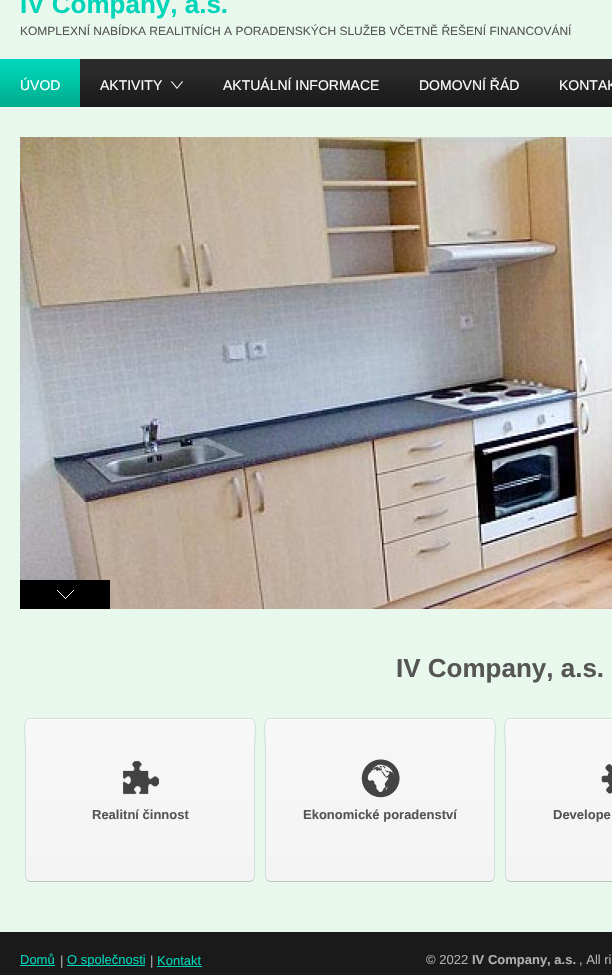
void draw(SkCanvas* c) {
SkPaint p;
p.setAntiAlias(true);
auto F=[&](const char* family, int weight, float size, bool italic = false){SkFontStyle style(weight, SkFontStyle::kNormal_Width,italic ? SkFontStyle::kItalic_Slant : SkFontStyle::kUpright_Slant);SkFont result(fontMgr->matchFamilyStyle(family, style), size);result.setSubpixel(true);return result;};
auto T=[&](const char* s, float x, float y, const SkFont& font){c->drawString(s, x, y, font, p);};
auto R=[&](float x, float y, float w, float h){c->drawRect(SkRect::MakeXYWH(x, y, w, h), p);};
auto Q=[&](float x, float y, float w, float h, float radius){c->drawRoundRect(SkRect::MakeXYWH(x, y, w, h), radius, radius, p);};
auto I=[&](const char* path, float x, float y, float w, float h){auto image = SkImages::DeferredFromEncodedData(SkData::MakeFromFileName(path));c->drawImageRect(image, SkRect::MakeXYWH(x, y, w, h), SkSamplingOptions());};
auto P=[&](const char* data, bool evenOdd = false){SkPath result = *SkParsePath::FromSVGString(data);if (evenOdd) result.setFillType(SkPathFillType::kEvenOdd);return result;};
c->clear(0xffe9f8ed);
auto f1 = F("Liberation Sans",700,26);
p.setColor(0xff00d4b9);
T("IV Company, a.s.",20,13,f1);
auto f2 = F("Liberation Sans",400,12);
p.setColor(0xff555555);
T("KOMPLEXNÍ NABÍDKA REALITNÍCH A PORADENSKÝCH SLUŽEB VČETNĚ ŘEŠENÍ FINANCOVÁNÍ",20,35,f2);
I("1.png",80,59,532,48);
I("2.png",0,59,80,48);
auto f3 = F("Liberation Sans",400,14);
p.setColor(0xffffffff);
T("ÚVOD",20,90,f3);
T("AKTIVITY",100,90,f3);
I("3.png",171,81,12,8);
T("AKTUÁLNÍ INFORMACE",223,90,f3);
T("DOMOVNÍ ŘÁD",419,90,f3);
T("KONTAK",559,90,f3);
I("4.png",20,137,592,472);
p.setColor(0xff000000);
R(20,580,90,29);
I("5.png",57,590,17,9);
p.setColor(0xff555555);
T("IV Company, a.s.",396,677,f1);
{
const SkColor colors[] = {0xfff7f7f7,0xfff4f4f4};
const float stops[] = {0,1};
const SkPoint ends[] = {{140,719}, {140,881}};
p.setShader(SkGradientShader::MakeLinear(ends, colors, stops, 2, SkTileMode::kClamp));
p.setAlpha(255);
}
Q(26,719,228,162,4);
p.setShader(nullptr);
p.setColor(0xffffffff);
c->drawPath(P("M30 720h220c2 0 4 2 4 4c0-3-1-5-4-5h-220c-3 0-4 2-4 5c0-2 2-4 4-4z"),p);
p.setStroke(true);
p.setStrokeWidth(1);
p.setColor(0x33000000);
c->drawPath(P("M253 880l-3 1.5h-220.5l-2.5-1.5"),p);
p.setColor(0x1a000000);
c->drawPath(P("M27 880l-1.5-3v-128.5c0-8.5-4.5-30 4.5-30h220c9 0 4.5 21.5 4.5 30v128.5l-1.5 3"),p);
I("6.png",122,760,37,35);
auto f4 = F("Liberation Sans",700,13);
p.setStroke(false);
p.setColor(0xff555555);
T("Realitní činnost",92,819,f4);
{
const SkColor colors[] = {0xfff7f7f7,0xfff4f4f4};
const float stops[] = {0,1};
const SkPoint ends[] = {{380,719}, {380,881}};
p.setShader(SkGradientShader::MakeLinear(ends, colors, stops, 2, SkTileMode::kClamp));
p.setAlpha(255);
}
Q(266,719,228,162,4);
p.setShader(nullptr);
p.setColor(0xffffffff);
c->drawPath(P("M270 720h220c2 0 4 2 4 4c0-3-1-5-4-5h-220c-3 0-4 2-4 5c0-2 2-4 4-4z"),p);
p.setStroke(true);
p.setColor(0x33000000);
c->drawPath(P("M493 880l-2.5 1.5h-184h-36.5l-3-1.5"),p);
p.setColor(0x1a000000);
c->drawPath(P("M267 880l-1.5-3v-128.5c0-8.5-4.5-30 4.5-30h220c9 0 4.5 21.5 4.5 30v128.5l-1.5 3"),p);
I("7.png",361,759,39,39);
p.setStroke(false);
p.setColor(0xff555555);
T("Ekonomické poradenství",303,819,f4);
{
const SkColor colors[] = {0xfff7f7f7,0xfff4f4f4};
const float stops[] = {0,1};
const SkPoint ends[] = {{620,719}, {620,881}};
p.setShader(SkGradientShader::MakeLinear(ends, colors, stops, 2, SkTileMode::kClamp));
p.setAlpha(255);
}
Q(506,719,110,162,4);
p.setShader(nullptr);
p.setColor(0xffffffff);
c->drawPath(P("M510 720h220c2 0 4 2 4 4c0-3-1-5-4-5h-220c-3 0-4 2-4 5c0-2 2-4 4-4z"),p);
p.setStroke(true);
p.setColor(0x33000000);
c->drawPath(P("M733 880l-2.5 1.5h-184h-36.5l-3-1.5"),p);
p.setColor(0x1a000000);
c->drawPath(P("M507 880l-1.5-3v-128.5c0-8.5-4.5-30 4.5-30h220c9 0 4.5 21.5 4.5 30v128.5l-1.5 3"),p);
I("8.png",601,764,11,30);
p.setStroke(false);
p.setColor(0xff555555);
T("Develope",553,819,f4);
p.setColor(0xff1a1a1a);
R(0,932,612,43);
auto f5 = F("Liberation Sans",400,13);
p.setColor(0xff00d4b9);
T("Domů",20,964,f5);
R(20,965,35,1);
p.setColor(0xffafafaf);
T("|",60,965,f5);
p.setColor(0xff00d4b9);
R(67,965,78,1);
T("O společnosti",67,964,f5);
p.setColor(0xffafafaf);
T("|",150,965,f5);
p.setColor(0xff00d4b9);
T("Kontakt",157,965,f5);
R(157,966,45,1);
p.setColor(0xffafafaf);
T("© 2022",426,964,f5);
T("IV Company, a.s.",472,964,f4);
T(", All ri",579,964,f5);
}
